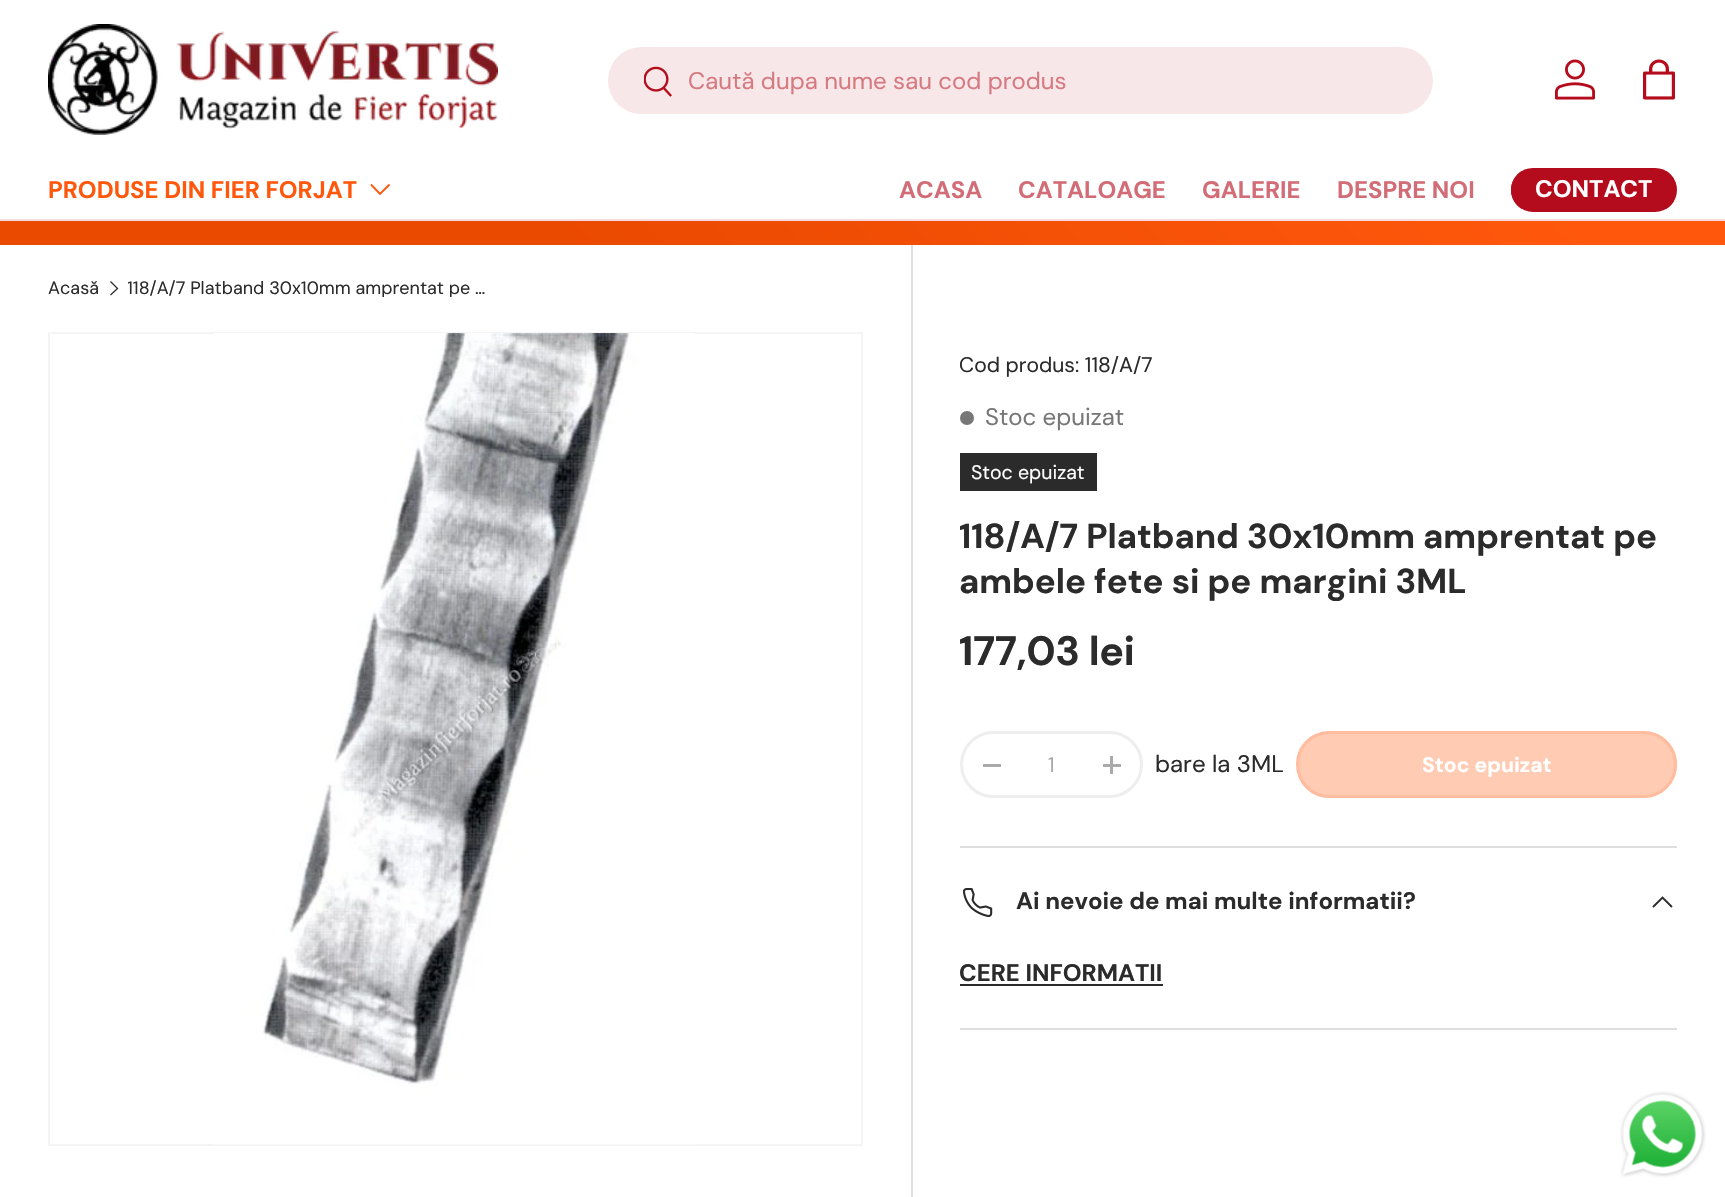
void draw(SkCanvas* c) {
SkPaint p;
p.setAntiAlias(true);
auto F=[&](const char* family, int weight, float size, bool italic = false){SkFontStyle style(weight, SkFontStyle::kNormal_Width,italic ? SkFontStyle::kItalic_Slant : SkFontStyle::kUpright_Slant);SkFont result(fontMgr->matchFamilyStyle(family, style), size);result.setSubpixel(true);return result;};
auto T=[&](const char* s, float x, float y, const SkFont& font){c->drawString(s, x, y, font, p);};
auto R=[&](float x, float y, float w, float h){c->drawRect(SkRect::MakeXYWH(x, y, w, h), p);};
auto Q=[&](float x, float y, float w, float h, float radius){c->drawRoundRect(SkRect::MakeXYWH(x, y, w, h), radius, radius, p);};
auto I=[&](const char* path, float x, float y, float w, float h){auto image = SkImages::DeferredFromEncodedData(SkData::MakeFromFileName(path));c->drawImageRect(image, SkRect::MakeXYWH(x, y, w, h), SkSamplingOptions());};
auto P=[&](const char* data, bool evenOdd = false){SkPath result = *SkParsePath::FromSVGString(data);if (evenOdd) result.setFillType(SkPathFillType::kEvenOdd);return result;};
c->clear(0xffffffff);
p.setColor(0xfff4dbdd);
R(0,219,1725,2);
I("1.png",48,24,450,111);
p.setColor(0xfff8e7e8);
Q(608,47,825,67,33.5);
I("2.png",644,66,28,31);
auto f1 = F("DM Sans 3",400,24);
p.setColor(0xffd67a82);
T("Caută dupa nume sau cod produs",688,89,f1);
I("3.png",1555,59,40,41);
I("4.png",1643,59,32,41);
auto f2 = F("DM Sans 3",700,24);
p.setColor(0xffff580d);
T("PRODUSE DIN FIER FORJAT",48,198,f2);
p.setStroke(true);
p.setStrokeWidth(1.9);
c->drawPath(P("M389.5 184.5l-9.5 9.5l-9-9.5"),p);
p.setStroke(false);
p.setColor(0xffd26d77);
T("ACASA",899,198,f2);
T("CATALOAGE",1018,198,f2);
T("GALERIE",1202,198,f2);
T("DESPRE NOI",1337,198,f2);
c->save();
c->clipPath(P("M1533 168h122c12 0 22 10 22 22c0 12-10 22-22 22h-122c-12 0-22-10-22-22c0-12 10-22 22-22z"),true);
{
const SkColor colors[] = {0xffcb3342,0xffb40c1c,0xffb40c1c};
const float stops[] = {.6,.6,1};
const SkPoint ends[] = {{1202,132}, {1664,247}};
p.setShader(SkGradientShader::MakeLinear(ends, colors, stops, 3, SkTileMode::kClamp));
p.setAlpha(255);
}
R(1511,171,163,38);
c->restore();
p.setStroke(true);
p.setStrokeWidth(3);
p.setShader(nullptr);
p.setColor(0xffb40c1c);
c->drawRoundRect(SkRect::MakeXYWH(1512.5,169.5,163,41),20.5,20.5,p);
p.setStroke(false);
p.setColor(0xffffffff);
T("CONTACT",1535,197,f2);
{
const SkColor colors[] = {0xffea4900,0xffea4900,0xffff580d};
const float stops[] = {.08,.32,.92};
const SkPoint ends[] = {{410,669}, {1315,-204}};
p.setShader(SkGradientShader::MakeLinear(ends, colors, stops, 3, SkTileMode::kClamp));
p.setAlpha(255);
}
R(0,221,1725,24);
auto f3 = F("DM Sans",400,18);
p.setShader(nullptr);
p.setColor(0xff2a2b2a);
T("Acasă",48,294,f3);
p.setStroke(true);
p.setStrokeWidth(1.3);
c->drawPath(P("M110.5 281.5l7 7l-7 6.5"),p);
c->save();
c->clipRect(SkRect::MakeXYWH(128,279,360,18));
p.setStroke(false);
T("118/A/7 Platband 30x10mm amprentat pe …",127,294,f3);
c->restore();
p.setStroke(true);
p.setStrokeWidth(2);
p.setColor(0xfff4f4f4);
c->drawRect(SkRect::MakeXYWH(49,333,813,812),p);
I("5.png",214,333,481,812);
p.setStroke(false);
p.setColor(0xffdfdfdf);
R(911,245,2,952);
auto f4 = F("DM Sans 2",400,21.1);
p.setColor(0xff2a2b2a);
T("Cod produs: 118/A/7",959,372,f4);
p.setColor(0xff777777);
c->drawCircle(967,418,7,p);
T("Stoc epuizat",985,425,f1);
p.setColor(0xff2a2b2a);
R(960,453,137,38);
auto f5 = F("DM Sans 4",400,19.5);
p.setColor(0xffffffff);
T("Stoc epuizat",971,479,f5);
auto f6 = F("DM Sans",700,34.75);
p.setColor(0xff2a2b2a);
T("118/A/7 Platband 30x10mm amprentat pe",959,548,f6);
T("ambele fete si pe margini 3ML",959,593,f6);
auto f7 = F("DM Sans 2",700,41);
T("177,03 lei",959,665,f7);
p.setStroke(true);
p.setStrokeWidth(3);
p.setColor(0xffeeeeee);
c->drawRoundRect(SkRect::MakeXYWH(961.5,732.5,180,64),32,32,p);
p.setStroke(false);
p.setColor(0xffaaaaaa);
R(983,764,18,3);
T("1",1048,772,f4);
R(1103,764,18,3);
R(1110,756,3,18);
p.setColor(0xff2a2b2a);
T("bare la 3ML",1155,772,f1);
c->save();
c->clipPath(P("M1329.5 731h314c18.5 0 33.5 15 33.5 33.5c0 18.5-15 33.5-33.5 33.5h-314c-18.5 0-33.5-15-33.5-33.5c0-18.5 15-33.5 33.5-33.5z"),true);
{
const SkColor colors[] = {0xffffcbb3,0xffffbc9e,0xffffbc9e};
const float stops[] = {.6,.6,1};
const SkPoint ends[] = {{1325,630}, {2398,898}};
p.setShader(SkGradientShader::MakeLinear(ends, colors, stops, 3, SkTileMode::kClamp));
p.setAlpha(255);
}
R(1299,734,378,61);
c->restore();
p.setStroke(true);
p.setShader(nullptr);
p.setColor(0xffffbc9e);
c->drawRoundRect(SkRect::MakeXYWH(1297.5,732.5,378,64),32,32,p);
auto f8 = F("DM Sans 4",700,21.1);
p.setStroke(false);
p.setColor(0xffffffff);
T("Stoc epuizat",1422,772,f8);
p.setColor(0xffdfdfdf);
R(960,846,717,2);
R(960,1028,717,2);
I("6.png",962,888,31,29);
p.setColor(0xff2a2b2a);
T("Ai nevoie de mai multe informatii?",1016,909,f2);
p.setStroke(true);
p.setStrokeWidth(1.9);
c->drawPath(P("M1672 907l-9.5-9.5l-9.5 9.5"),p);
p.setStroke(false);
T("CERE INFORMATII",959,981,f2);
R(960,984,203,2);
I("7.png",1620,1091,86,87);
}
